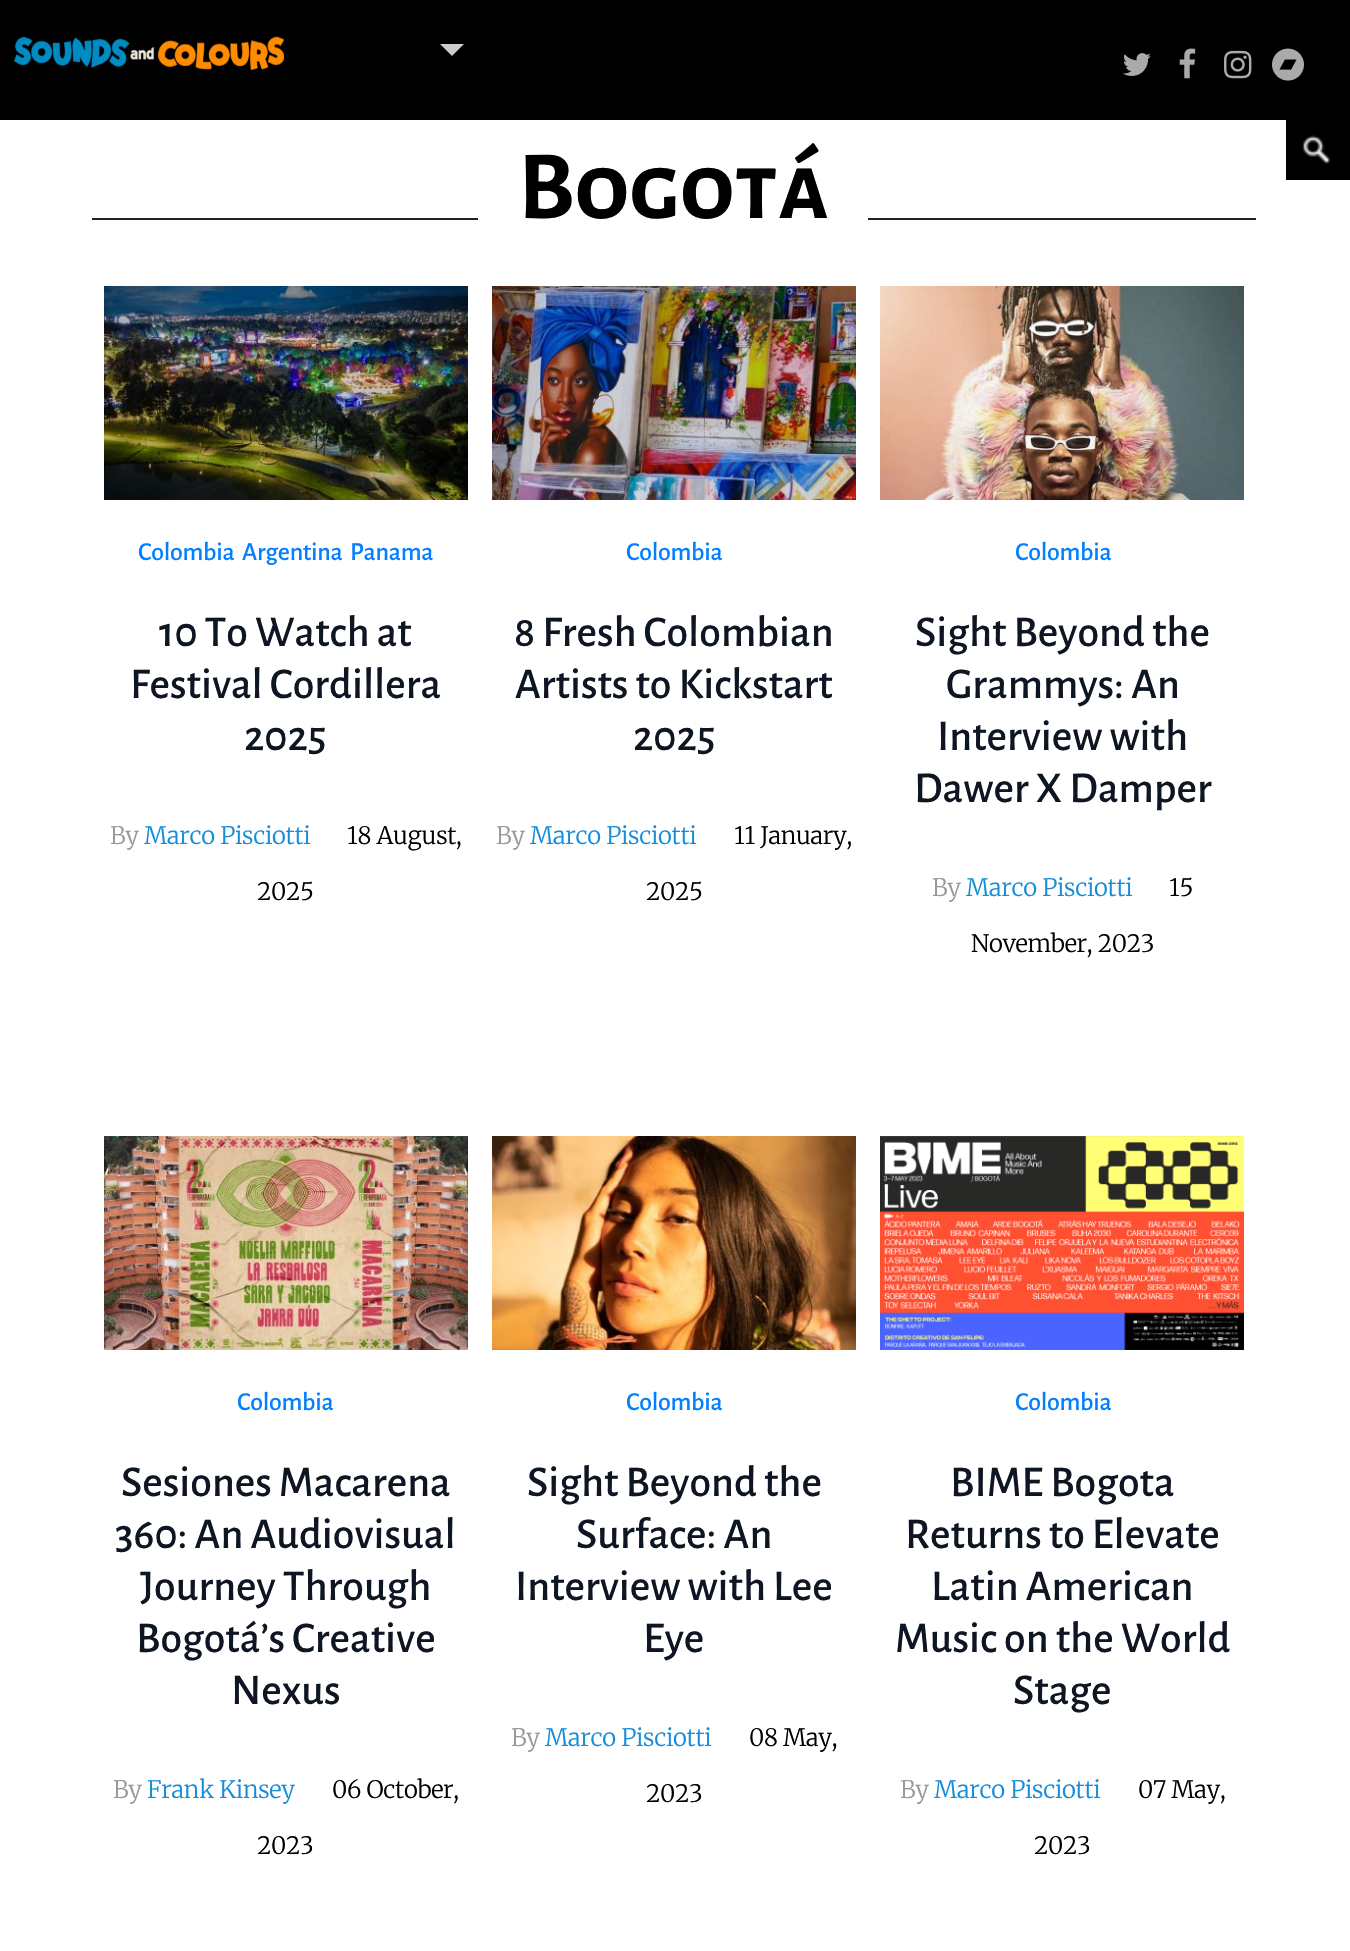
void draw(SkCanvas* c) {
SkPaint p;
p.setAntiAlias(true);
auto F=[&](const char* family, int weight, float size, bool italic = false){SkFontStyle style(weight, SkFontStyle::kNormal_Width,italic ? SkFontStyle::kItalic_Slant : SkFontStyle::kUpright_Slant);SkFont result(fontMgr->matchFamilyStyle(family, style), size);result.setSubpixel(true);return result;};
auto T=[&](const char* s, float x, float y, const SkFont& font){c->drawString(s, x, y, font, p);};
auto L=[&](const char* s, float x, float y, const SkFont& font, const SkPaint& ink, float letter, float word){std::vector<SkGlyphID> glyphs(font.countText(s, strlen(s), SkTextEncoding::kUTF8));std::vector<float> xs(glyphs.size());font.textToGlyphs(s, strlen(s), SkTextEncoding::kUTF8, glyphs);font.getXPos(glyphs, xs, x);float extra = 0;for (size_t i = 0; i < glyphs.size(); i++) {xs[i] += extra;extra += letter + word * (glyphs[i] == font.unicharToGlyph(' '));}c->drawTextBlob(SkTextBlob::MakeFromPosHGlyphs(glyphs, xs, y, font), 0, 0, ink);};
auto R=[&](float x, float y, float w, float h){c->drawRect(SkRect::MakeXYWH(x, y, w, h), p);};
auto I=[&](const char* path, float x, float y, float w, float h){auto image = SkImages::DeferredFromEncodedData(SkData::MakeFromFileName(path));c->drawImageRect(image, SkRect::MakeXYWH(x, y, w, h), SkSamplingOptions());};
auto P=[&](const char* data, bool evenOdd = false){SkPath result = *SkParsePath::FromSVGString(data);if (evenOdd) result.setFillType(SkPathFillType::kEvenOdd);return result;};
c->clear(0xffffffff);
p.setColor(0xff000000);
R(0,0,1350,120);
I("1.png",14,36,270,34);
p.setColor(0xffcccccc);
c->drawPath(P("M440 44h24l-12 12z"),p);
I("2.png",1123,53,28,23);
I("3.png",1179,48,17,31);
I("4.png",1224,50,28,29);
I("5.png",1272,48,32,33);
p.setColor(0xff000000);
R(1286,120,64,60);
I("6.png",1302,135,29,30);
p.setColor(0xff222222);
R(92,218,1164,2);
p.setColor(0xffffffff);
R(478,218,390,2);
auto f1 = F("Alegreya Sans SC",700,98);
p.setColor(0xff000000);
L("Bogotá",518,218,f1,p,-.3,0);
I("7.png",104,286,364,214);
auto f2 = F("Alegreya Sans",500,26);
p.setColor(0xff037fff);
L("Colombia",138,560,f2,p,-.3,0);
L("Argentina",242,560,f2,p,-.3,0);
L("Panama",350,560,f2,p,-.3,0);
auto f3 = F("Alegreya Sans",500,44);
p.setColor(0xff0e1523);
T("10 To Watch at",159,646,f3);
T("Festival Cordillera",130,698,f3);
T("2025",244,750,f3);
auto f4 = F("Merriweather",300,24);
p.setColor(0xff989898);
L("By",110,844,f4,p,-.3,0);
p.setColor(0xff168dd9);
L("Marco Pisciotti",144,844,f4,p,-.3,0);
p.setColor(0xff000000);
L("18 August,",347,844,f4,p,-.3,0);
L("2025",257,900,f4,p,-.3,0);
I("8.png",492,286,364,214);
p.setColor(0xff037fff);
L("Colombia",626,560,f2,p,-.3,0);
p.setColor(0xff0e1523);
T("8 Fresh Colombian",514,646,f3);
T("Artists to Kickstart",515,698,f3);
T("2025",633,750,f3);
p.setColor(0xff989898);
L("By",496,844,f4,p,-.3,0);
p.setColor(0xff168dd9);
L("Marco Pisciotti",530,844,f4,p,-.3,0);
p.setColor(0xff000000);
L("11 January,",734,844,f4,p,-.3,0);
L("2025",646,900,f4,p,-.3,0);
I("9.png",880,286,364,214);
p.setColor(0xff037fff);
L("Colombia",1015,560,f2,p,-.3,0);
p.setColor(0xff0e1523);
T("Sight Beyond the",915,646,f3);
T("Grammys: An",946,698,f3);
T("Interview with",937,750,f3);
T("Dawer X Damper",914,802,f3);
p.setColor(0xff989898);
L("By",932,896,f4,p,-.3,0);
p.setColor(0xff168dd9);
L("Marco Pisciotti",966,896,f4,p,-.3,0);
p.setColor(0xff000000);
L("15",1169,896,f4,p,-.3,0);
L("November, 2023",971,952,f4,p,-.3,0);
I("10.png",104,1136,364,214);
p.setColor(0xff037fff);
L("Colombia",237,1410,f2,p,-.3,0);
p.setColor(0xff0e1523);
T("Sesiones Macarena",121,1496,f3);
T("360: An Audiovisual",115,1548,f3);
T("Journey Through",140,1600,f3);
T("Bogotá’s Creative",136,1652,f3);
T("Nexus",231,1704,f3);
p.setColor(0xff989898);
L("By",113,1798,f4,p,-.3,0);
p.setColor(0xff168dd9);
L("Frank Kinsey",147,1798,f4,p,-.3,0);
p.setColor(0xff000000);
L("06 October,",332,1798,f4,p,-.3,0);
L("2023",257,1854,f4,p,-.3,0);
I("11.png",492,1136,364,214);
p.setColor(0xff037fff);
L("Colombia",626,1410,f2,p,-.3,0);
p.setColor(0xff0e1523);
T("Sight Beyond the",527,1496,f3);
T("Surface: An",576,1548,f3);
T("Interview with Lee",515,1600,f3);
T("Eye",643,1652,f3);
p.setColor(0xff989898);
L("By",511,1746,f4,p,-.3,0);
p.setColor(0xff168dd9);
L("Marco Pisciotti",545,1746,f4,p,-.3,0);
p.setColor(0xff000000);
L("08 May,",749,1746,f4,p,-.3,0);
L("2023",646,1802,f4,p,-.3,0);
I("12.png",880,1136,364,214);
p.setColor(0xff037fff);
L("Colombia",1015,1410,f2,p,-.3,0);
p.setColor(0xff0e1523);
T("BIME Bogota",950,1496,f3);
T("Returns to Elevate",905,1548,f3);
T("Latin American",931,1600,f3);
T("Music on the World",895,1652,f3);
T("Stage",1013,1704,f3);
p.setColor(0xff989898);
L("By",900,1798,f4,p,-.3,0);
p.setColor(0xff168dd9);
L("Marco Pisciotti",934,1798,f4,p,-.3,0);
p.setColor(0xff000000);
L("07 May,",1138,1798,f4,p,-.3,0);
L("2023",1034,1854,f4,p,-.3,0);
}
